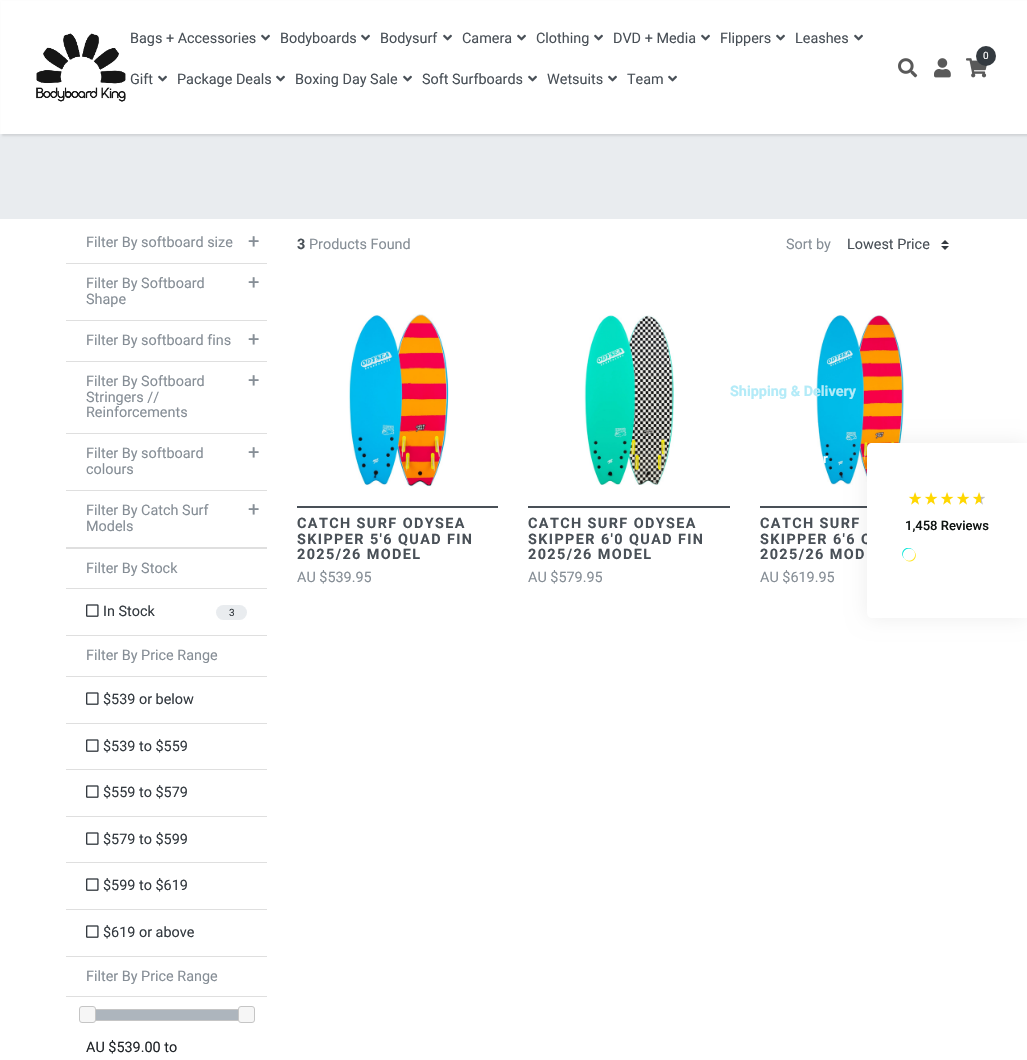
void draw(SkCanvas* c) {
SkPaint p;
p.setAntiAlias(true);
auto F=[&](const char* family, int weight, float size, bool italic = false){SkFontStyle style(weight, SkFontStyle::kNormal_Width,italic ? SkFontStyle::kItalic_Slant : SkFontStyle::kUpright_Slant);SkFont result(fontMgr->matchFamilyStyle(family, style), size);result.setSubpixel(true);return result;};
auto T=[&](const char* s, float x, float y, const SkFont& font){c->drawString(s, x, y, font, p);};
auto L=[&](const char* s, float x, float y, const SkFont& font, const SkPaint& ink, float letter, float word){std::vector<SkGlyphID> glyphs(font.countText(s, strlen(s), SkTextEncoding::kUTF8));std::vector<float> xs(glyphs.size());font.textToGlyphs(s, strlen(s), SkTextEncoding::kUTF8, glyphs);font.getXPos(glyphs, xs, x);float extra = 0;for (size_t i = 0; i < glyphs.size(); i++) {xs[i] += extra;extra += letter + word * (glyphs[i] == font.unicharToGlyph(' '));}c->drawTextBlob(SkTextBlob::MakeFromPosHGlyphs(glyphs, xs, y, font), 0, 0, ink);};
auto R=[&](float x, float y, float w, float h){c->drawRect(SkRect::MakeXYWH(x, y, w, h), p);};
auto Q=[&](float x, float y, float w, float h, float radius){c->drawRoundRect(SkRect::MakeXYWH(x, y, w, h), radius, radius, p);};
auto I=[&](const char* path, float x, float y, float w, float h){auto image = SkImages::DeferredFromEncodedData(SkData::MakeFromFileName(path));c->drawImageRect(image, SkRect::MakeXYWH(x, y, w, h), SkSamplingOptions());};
auto P=[&](const char* data, bool evenOdd = false){SkPath result = *SkParsePath::FromSVGString(data);if (evenOdd) result.setFillType(SkPathFillType::kEvenOdd);return result;};
c->clear(0xffffffff);
p.setColor(0xffe9ecef);
R(0,134,1027,85);
p.setColor(0x1a000000);
p.setMaskFilter(SkMaskFilter::MakeBlur(kNormal_SkBlurStyle, 1));
c->drawRect(SkRect::MakeXYWH(2,2,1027,134),p);
p.setMaskFilter(nullptr);
p.setColor(0xffffffff);
R(1,1,1026,133);
I("1.png",36,33,90,69);
auto f1 = F("Roboto",400,14.4);
p.setColor(0xff495057);
T("Bags + Accessories",130,43,f1);
I("2.png",261,34,9,7);
T("Bodyboards",280,43,f1);
I("2.png",361,34,9,7);
T("Bodysurf",380,43,f1);
I("2.png",443,34,9,7);
T("Camera",462,43,f1);
I("2.png",517,34,9,7);
T("Clothing",536,43,f1);
I("2.png",594,34,9,7);
T("DVD + Media",613,43,f1);
I("2.png",701,34,9,7);
T("Flippers",720,43,f1);
I("2.png",776,34,9,7);
T("Leashes",795,43,f1);
I("2.png",854,34,9,7);
T("Gift",130,84,f1);
I("2.png",158,75,9,7);
T("Package Deals",177,84,f1);
I("2.png",276,75,9,7);
T("Boxing Day Sale",295,84,f1);
I("2.png",403,75,9,7);
T("Soft Surfboards",422,84,f1);
I("2.png",528,75,9,7);
T("Wetsuits",547,84,f1);
I("2.png",608,75,9,7);
T("Team",627,84,f1);
I("2.png",668,75,9,7);
I("3.png",966,58,21,20);
p.setColor(0xff343a40);
c->drawCircle(986,56,10,p);
auto f2 = F("Roboto",400,10);
p.setColor(0xffffffff);
T("0",983,59,f2);
I("4.png",898,58,20,20);
I("5.png",934,58,17,20);
p.setColor(0xffdfdfdf);
R(66,263,201,1);
p.setColor(0xff868e96);
T("Filter By softboard size",86,247,f1);
auto f3 = F("Roboto",400,20);
T("+",248,248,f3);
p.setColor(0xffdfdfdf);
R(66,320,201,1);
p.setColor(0xff868e96);
T("Filter By Softboard",86,288,f1);
T("Shape",86,304,f1);
T("+",248,289,f3);
p.setColor(0xffdfdfdf);
R(66,361,201,1);
p.setColor(0xff868e96);
T("Filter By softboard fins",86,345,f1);
T("+",248,346,f3);
p.setColor(0xffdfdfdf);
R(66,433,201,1);
p.setColor(0xff868e96);
T("Filter By Softboard",86,386,f1);
T("Stringers //",86,402,f1);
T("Reinforcements",86,417,f1);
T("+",248,387,f3);
p.setColor(0xffdfdfdf);
R(66,490,201,1);
p.setColor(0xff868e96);
T("Filter By softboard",86,458,f1);
T("colours",86,474,f1);
T("+",248,459,f3);
p.setColor(0xffdfdfdf);
R(66,547,201,2);
p.setColor(0xff868e96);
T("Filter By Catch Surf",86,515,f1);
T("Models",86,531,f1);
T("+",248,516,f3);
p.setColor(0xffdfdfdf);
R(66,588,201,1);
p.setColor(0xff868e96);
T("Filter By Stock",86,573,f1);
p.setColor(0xffdfdfdf);
R(66,635,201,1);
I("6.png",86,604,13,13);
p.setColor(0xff343a40);
T("In Stock",103,616,f1);
p.setColor(0xffe9ecef);
Q(216,605,31,15,7.5);
p.setColor(0xff343a40);
T("3",229,616,f2);
p.setColor(0xffdfdfdf);
R(66,676,201,1);
p.setColor(0xff868e96);
T("Filter By Price Range",86,660,f1);
p.setColor(0xffdfdfdf);
R(66,723,201,1);
I("6.png",86,692,13,13);
p.setColor(0xff343a40);
T("$539 or below",103,704,f1);
p.setColor(0xffdfdfdf);
R(66,769,201,1);
I("6.png",86,739,13,13);
p.setColor(0xff343a40);
T("$539 to $559",103,751,f1);
p.setColor(0xffdfdfdf);
R(66,816,201,1);
I("6.png",86,785,13,13);
p.setColor(0xff343a40);
T("$559 to $579",103,797,f1);
p.setColor(0xffdfdfdf);
R(66,862,201,1);
I("6.png",86,832,13,13);
p.setColor(0xff343a40);
T("$579 to $599",103,844,f1);
p.setColor(0xffdfdfdf);
R(66,909,201,1);
I("6.png",86,878,13,13);
p.setColor(0xff343a40);
T("$599 to $619",103,890,f1);
p.setColor(0xffdfdfdf);
R(66,956,201,1);
I("6.png",86,925,13,13);
p.setColor(0xff343a40);
T("$619 or above",103,937,f1);
p.setColor(0xffdfdfdf);
R(66,996,201,1);
p.setColor(0xff868e96);
T("Filter By Price Range",86,981,f1);
p.setStroke(true);
p.setStrokeWidth(1);
p.setColor(0xffc5c5c5);
c->drawRect(SkRect::MakeXYWH(86.5,1009.5,160,11),p);
p.setStroke(false);
p.setColor(0xfff6f6f6);
c->drawRoundRect(SkRect::MakeXYWH(79.5,1006.5,16,16),2.5,2.5,p);
p.setStroke(true);
p.setColor(0xffc5c5c5);
c->drawRoundRect(SkRect::MakeXYWH(79.5,1006.5,16,16),2.5,2.5,p);
p.setStroke(false);
p.setColor(0xffadb5bd);
R(96,1010,142,10);
p.setColor(0xfff6f6f6);
c->drawRoundRect(SkRect::MakeXYWH(238.5,1006.5,16,16),2.5,2.5,p);
p.setStroke(true);
p.setColor(0xffc5c5c5);
c->drawRoundRect(SkRect::MakeXYWH(238.5,1006.5,16,16),2.5,2.5,p);
p.setStroke(false);
p.setColor(0xff212529);
T("AU $539.00 to",86,1052,f1);
auto f4 = F("Roboto",700,14.4);
p.setColor(0xff495057);
T("3",297,249,f4);
p.setColor(0xff868e96);
T("Products Found",309,249,f1);
T("Sort by",786,249,f1);
I("7.png",941,240,8,10);
p.setColor(0xff495057);
T("Lowest Price",847,249,f1);
R(297,506,201,2);
I("8.png",348,314,101,173);
L("CATCH SURF ODYSEA",297,528,f4,p,1.4,0);
L("SKIPPER 5'6 QUAD FIN",297,544,f4,p,1.4,0);
L("2025/26 MODEL",297,559,f4,p,1.4,0);
p.setColor(0xff868e96);
T("AU $539.95",297,582,f1);
p.setColor(0xff495057);
R(528,506,202,2);
I("9.png",584,315,90,170);
L("CATCH SURF ODYSEA",528,528,f4,p,1.4,0);
L("SKIPPER 6'0 QUAD FIN",528,544,f4,p,1.4,0);
L("2025/26 MODEL",528,559,f4,p,1.4,0);
p.setColor(0xff868e96);
T("AU $579.95",528,582,f1);
p.setColor(0xff495057);
R(760,506,107,2);
I("10.png",816,315,88,170);
L("CATCH SURF",760,528,f4,p,1.4,0);
L("SKIPPER 6'6 Q",760,544,f4,p,1.4,0);
L("2025/26 MOD",760,559,f4,p,1.4,0);
p.setColor(0xff868e96);
T("AU $619.95",760,582,f1);
p.setColor(0xffb3ebf8);
T("Shipping & Delivery",730,396,f4);
auto f5 = F("Roboto",700,13);
p.setColor(0xfff8fcfe);
T("r",823,463,f5);
p.setColor(0x12000000);
p.setMaskFilter(SkMaskFilter::MakeBlur(kNormal_SkBlurStyle, 10));
c->drawRoundRect(SkRect::MakeXYWH(867,443,160,175),5,5,p);
p.setMaskFilter(nullptr);
p.setColor(0xffffffff);
c->drawPath(P("M872 443h155v175h-155c-3 0-5-2-5-5v-165c0-3 2-5 5-5z"),p);
I("11.png",908,492,14,13);
I("11.png",924,492,14,13);
I("11.png",940,492,14,13);
I("11.png",956,492,14,13);
I("12.png",972,492,13,13);
auto f6 = F("Roboto",500,13);
p.setColor(0xff0e1311);
T("1,458 Reviews",905,530,f6);
I("13.png",902,548,14,14);
}
